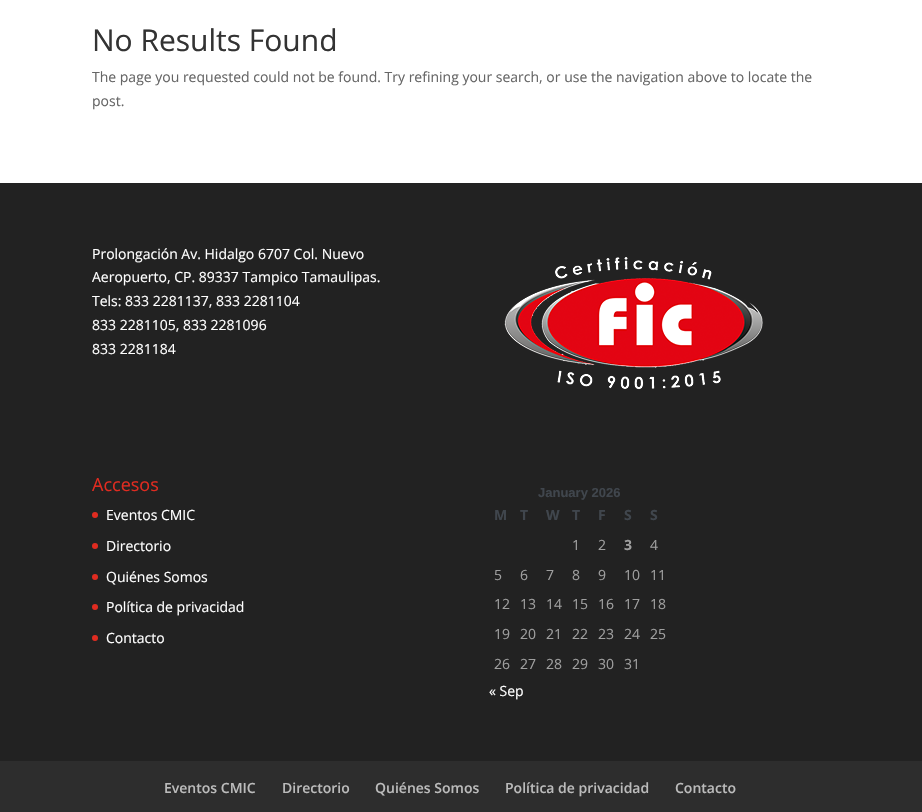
void draw(SkCanvas* c) {
SkPaint p;
p.setAntiAlias(true);
auto F=[&](const char* family, int weight, float size, bool italic = false){SkFontStyle style(weight, SkFontStyle::kNormal_Width,italic ? SkFontStyle::kItalic_Slant : SkFontStyle::kUpright_Slant);SkFont result(fontMgr->matchFamilyStyle(family, style), size);result.setSubpixel(true);return result;};
auto T=[&](const char* s, float x, float y, const SkFont& font){c->drawString(s, x, y, font, p);};
auto R=[&](float x, float y, float w, float h){c->drawRect(SkRect::MakeXYWH(x, y, w, h), p);};
auto I=[&](const char* path, float x, float y, float w, float h){auto image = SkImages::DeferredFromEncodedData(SkData::MakeFromFileName(path));c->drawImageRect(image, SkRect::MakeXYWH(x, y, w, h), SkSamplingOptions());};
c->clear(0xffffffff);
auto f1 = F("Open Sans",400,30);
p.setColor(0xff333333);
T("No Results Found",92,51,f1);
auto f2 = F("Open Sans",400,14);
p.setColor(0xff666666);
T("The page you requested could not be found. Try refining your search, or use the navigation above to locate the",92,82,f2);
T("post.",92,106,f2);
p.setColor(0xff222222);
R(0,183,922,578);
p.setColor(0xffffffff);
T("Prolongación Av. Hidalgo 6707 Col. Nuevo",92,259,f2);
T("Aeropuerto, CP. 89337 Tampico Tamaulipas.",92,282,f2);
T("Tels: 833 2281137, 833 2281104",92,306,f2);
T("833 2281105, 833 2281096",92,330,f2);
T("833 2281184",92,354,f2);
I("1.png",504,257,259,133);
auto f3 = F("Open Sans",400,18);
p.setColor(0xffe02b20);
T("Accesos",92,491,f3);
c->drawCircle(95,515,3,p);
p.setColor(0xffffffff);
T("Eventos CMIC",106,520,f2);
p.setColor(0xffe02b20);
c->drawCircle(95,546,3,p);
p.setColor(0xffffffff);
T("Directorio",106,551,f2);
p.setColor(0xffe02b20);
c->drawCircle(95,577,3,p);
p.setColor(0xffffffff);
T("Quiénes Somos",106,582,f2);
p.setColor(0xffe02b20);
c->drawCircle(95,607,3,p);
p.setColor(0xffffffff);
T("Política de privacidad",106,612,f2);
p.setColor(0xffe02b20);
c->drawCircle(95,638,3,p);
p.setColor(0xffffffff);
T("Contacto",106,643,f2);
auto f4 = F("Liberation Sans",700,13);
p.setColor(0xff40464d);
T("January 2026",538,497,f4);
auto f5 = F("Open Sans",700,14);
T("M",494,520,f5);
T("T",520,520,f5);
T("W",546,520,f5);
T("T",572,520,f5);
T("F",598,520,f5);
T("S",624,520,f5);
T("S",650,520,f5);
p.setColor(0xff9f9f9f);
T("1",572,550,f2);
T("2",598,550,f2);
T("3",624,550,f5);
T("4",650,550,f2);
T("5",494,580,f2);
T("6",520,580,f2);
T("7",546,580,f2);
T("8",572,580,f2);
T("9",598,580,f2);
T("10",624,580,f2);
T("11",650,580,f2);
T("12",494,609,f2);
T("13",520,609,f2);
T("14",546,609,f2);
T("15",572,609,f2);
T("16",598,609,f2);
T("17",624,609,f2);
T("18",650,609,f2);
T("19",494,639,f2);
T("20",520,639,f2);
T("21",546,639,f2);
T("22",572,639,f2);
T("23",598,639,f2);
T("24",624,639,f2);
T("25",650,639,f2);
T("26",494,669,f2);
T("27",520,669,f2);
T("28",546,669,f2);
T("29",572,669,f2);
T("30",598,669,f2);
T("31",624,669,f2);
p.setColor(0xffffffff);
T("« Sep",489,696,f2);
p.setColor(0xff2d2d2d);
R(0,761,922,51);
auto f6 = F("Open Sans",600,14);
p.setColor(0xffbbbbbb);
T("Eventos CMIC",164,793,f6);
T("Directorio",282,793,f6);
T("Quiénes Somos",375,793,f6);
T("Política de privacidad",505,793,f6);
T("Contacto",675,793,f6);
}
